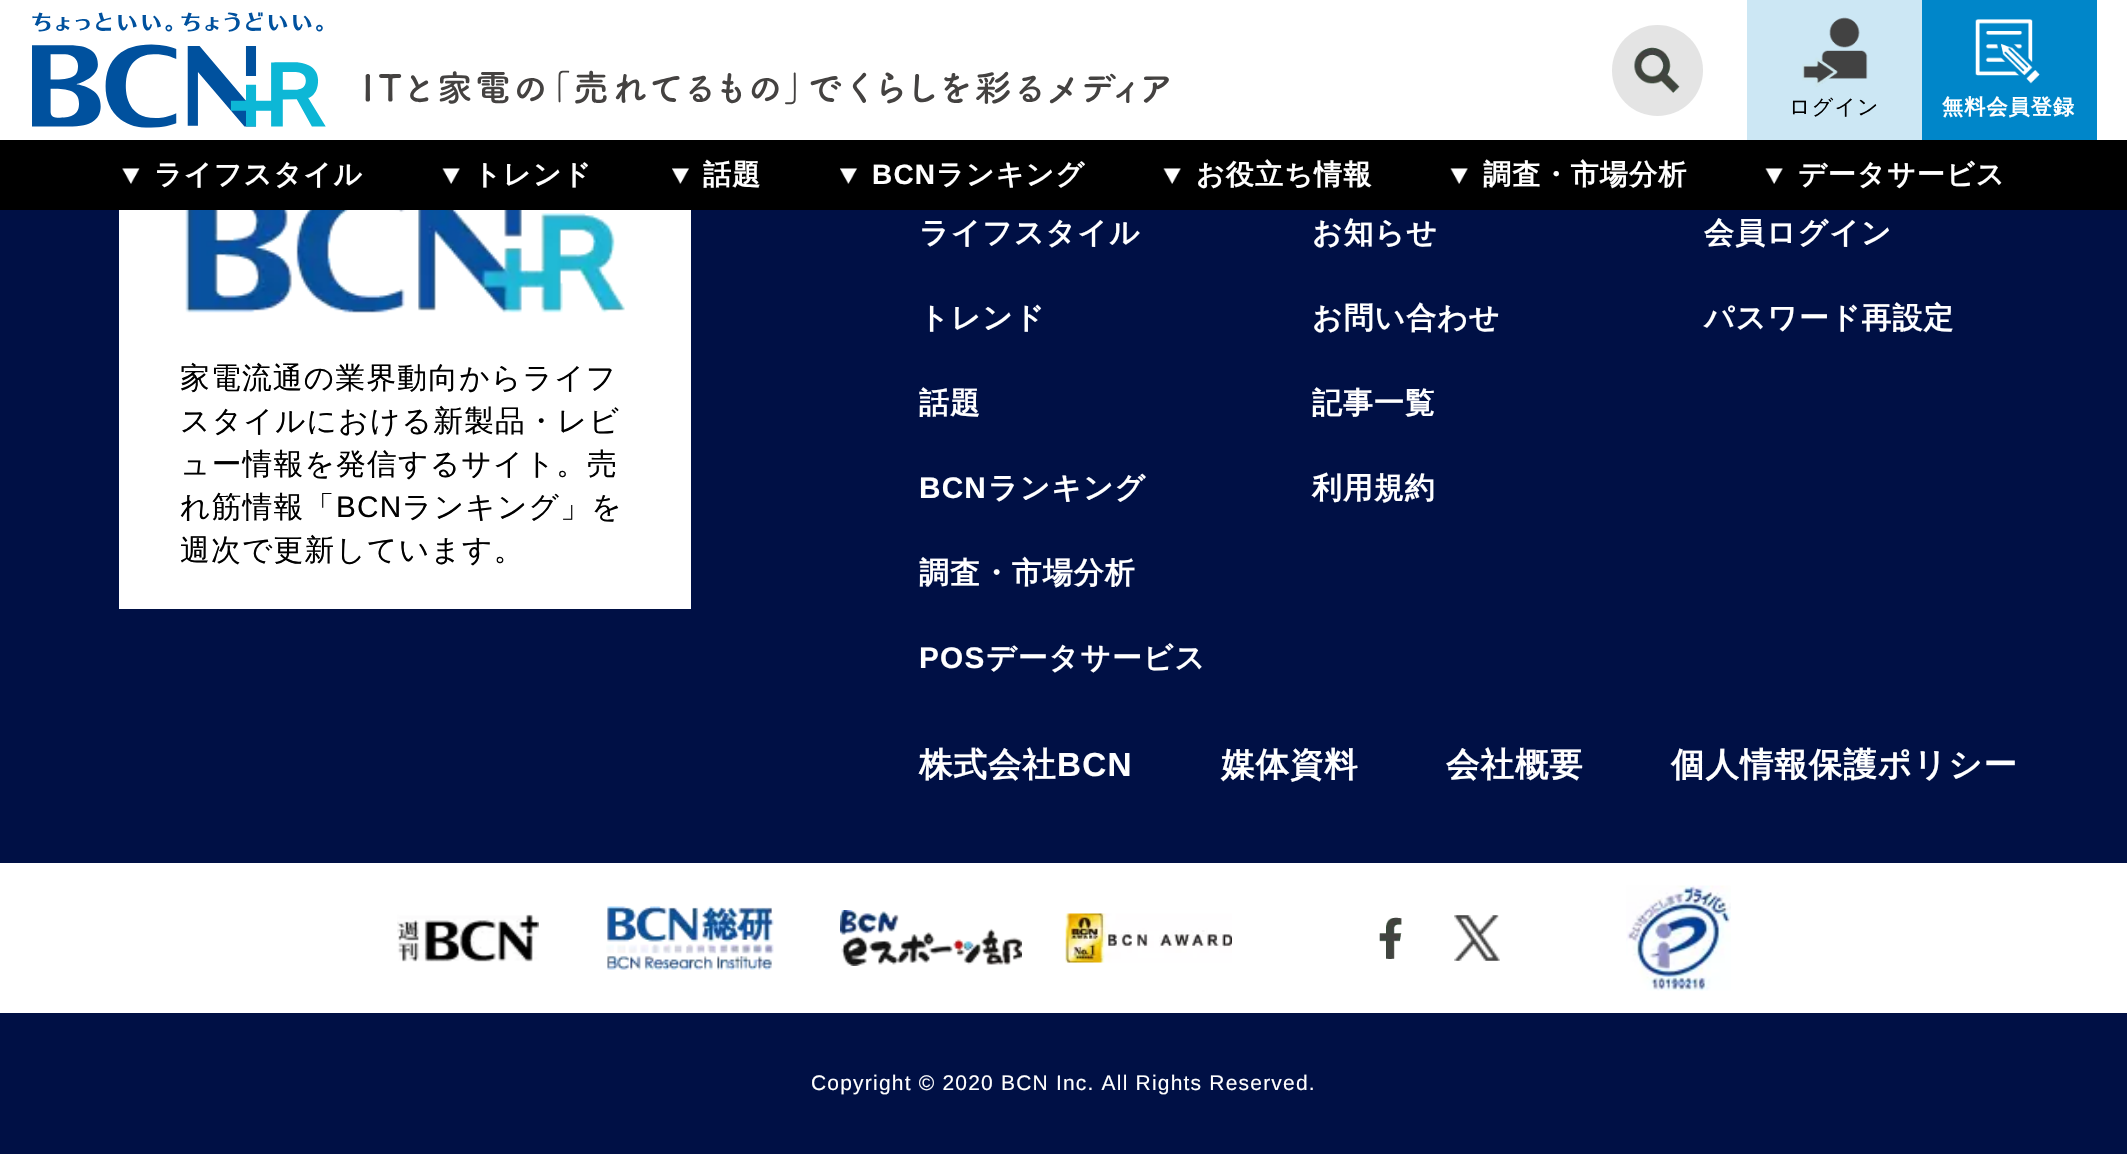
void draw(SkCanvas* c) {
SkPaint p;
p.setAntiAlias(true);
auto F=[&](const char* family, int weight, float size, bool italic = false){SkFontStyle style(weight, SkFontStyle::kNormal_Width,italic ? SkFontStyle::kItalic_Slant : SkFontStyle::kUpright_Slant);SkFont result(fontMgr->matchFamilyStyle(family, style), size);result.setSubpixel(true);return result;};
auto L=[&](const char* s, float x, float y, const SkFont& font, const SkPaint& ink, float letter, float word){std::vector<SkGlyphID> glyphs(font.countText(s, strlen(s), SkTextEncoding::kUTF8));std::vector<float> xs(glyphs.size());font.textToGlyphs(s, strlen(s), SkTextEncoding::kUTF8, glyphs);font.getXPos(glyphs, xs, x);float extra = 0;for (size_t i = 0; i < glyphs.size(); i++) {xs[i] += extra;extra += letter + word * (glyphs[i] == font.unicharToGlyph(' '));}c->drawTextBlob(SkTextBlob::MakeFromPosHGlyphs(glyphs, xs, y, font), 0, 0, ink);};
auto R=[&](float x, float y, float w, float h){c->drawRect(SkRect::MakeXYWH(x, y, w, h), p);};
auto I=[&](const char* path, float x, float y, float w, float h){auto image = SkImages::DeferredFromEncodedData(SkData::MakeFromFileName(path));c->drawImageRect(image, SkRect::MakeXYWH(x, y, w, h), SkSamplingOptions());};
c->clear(0xff001045);
p.setColor(0xffffffff);
R(0,0,2127,140);
I("1.png",32,12,1137,116);
p.setColor(0xffe4e4e4);
c->drawCircle(1657.5,70.5,45.5,p);
I("2.png",1634,47,46,46);
p.setColor(0xffcce7f4);
R(1747,0,175,140);
I("3.png",1802,17,66,70);
auto f1 = F("WenQuanYi Zen Hei",500,21);
p.setColor(0xff000000);
L("ログイン",1789,114,f1,p,1.2,0);
p.setColor(0xff0086c9);
R(1922,0,175,140);
I("4.png",1975,19,65,65);
auto f2 = F("WenQuanYi Zen Hei",700,21);
p.setColor(0xffffffff);
L("無料会員登録",1942,114,f2,p,1.2,0);
p.setColor(0xff000000);
R(0,140,2127,70);
I("5.png",122,168,18,16);
auto f3 = F("WenQuanYi Zen Hei",700,28);
p.setColor(0xffffffff);
L("ライフスタイル",154,184,f3,p,1.2,0);
I("6.png",442,168,18,16);
L("トレンド",473,184,f3,p,1.2,0);
I("7.png",672,168,18,16);
L("話題",703,184,f3,p,1.2,0);
I("8.png",840,168,18,16);
auto f4 = F("Liberation Sans",700,28);
L("BCN",872,184,f4,p,1.2,0);
L("ランキング",936,184,f3,p,1.2,0);
I("9.png",1163,168,18,16);
L("お役立ち情報",1196,184,f3,p,1.2,0);
I("6.png",1450,168,18,16);
L("調査・市場分析",1483,184,f3,p,1.2,0);
I("9.png",1765,168,18,16);
L("データサービス",1798,184,f3,p,1.2,0);
R(119,210,572,399);
I("10.png",185,210,440,103);
auto f5 = F("WenQuanYi Zen Hei",500,29.75);
p.setColor(0xff000000);
L("家電流通の業界動向からライフ",180,388,f5,p,1.2,0);
L("スタイルにおける新製品・レビ",180,431,f5,p,1.2,0);
L("ュー情報を発信するサイト。売",180,474,f5,p,1.2,0);
L("れ筋情報「",180,517,f5,p,1.2,0);
auto f6 = F("Liberation Sans",400,29.75);
L("BCN",336,517,f6,p,1.2,0);
L("ランキング」を",402,517,f5,p,1.2,0);
L("週次で更新しています。",180,560,f5,p,1.2,0);
auto f7 = F("WenQuanYi Zen Hei",700,29.75);
p.setColor(0xffffffff);
L("ライフスタイル",919,243,f7,p,1.2,0);
L("トレンド",919,328,f7,p,1.2,0);
L("話題",919,413,f7,p,1.2,0);
auto f8 = F("Liberation Sans",700,29.75);
L("BCN",919,498,f8,p,1.2,0);
L("ランキング",988,498,f7,p,1.2,0);
L("調査・市場分析",919,583,f7,p,1.2,0);
L("POS",919,668,f8,p,1.2,0);
L("データサービス",986,668,f7,p,1.2,0);
L("お知らせ",1312,243,f7,p,1.2,0);
L("お問い合わせ",1312,328,f7,p,1.2,0);
L("記事⼀覧",1312,413,f7,p,1.2,0);
L("利⽤規約",1312,498,f7,p,1.2,0);
L("会員ログイン",1704,243,f7,p,1.2,0);
L("パスワード再設定",1704,328,f7,p,1.2,0);
auto f9 = F("WenQuanYi Zen Hei",700,33.25);
L("株式会社",919,776,f9,p,1.2,0);
auto f10 = F("Liberation Sans",700,33.25);
L("BCN",1057,776,f10,p,1.2,0);
L("媒体資料",1221,776,f9,p,1.2,0);
L("会社概要",1446,776,f9,p,1.2,0);
L("個⼈情報保護ポリシー",1671,776,f9,p,1.2,0);
R(0,863,2127,150);
I("11.png",397,914,142,48);
I("12.png",606,906,168,64);
I("13.png",840,910,182,56);
I("14.png",1065,913,167,50);
I("15.png",1379,917,23,42);
I("16.png",1454,915,46,46);
I("17.png",1626,885,105,106);
auto f11 = F("Liberation Sans",400,21);
L("Copyright © 2020 BCN Inc. All Rights Reserved.",811,1090,f11,p,1.2,0);
}
